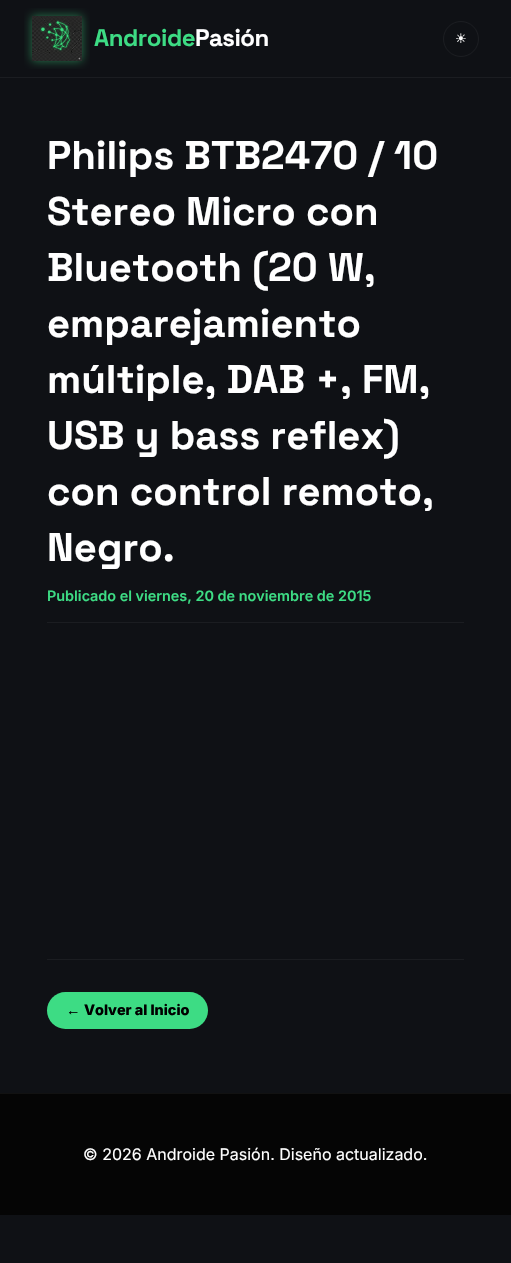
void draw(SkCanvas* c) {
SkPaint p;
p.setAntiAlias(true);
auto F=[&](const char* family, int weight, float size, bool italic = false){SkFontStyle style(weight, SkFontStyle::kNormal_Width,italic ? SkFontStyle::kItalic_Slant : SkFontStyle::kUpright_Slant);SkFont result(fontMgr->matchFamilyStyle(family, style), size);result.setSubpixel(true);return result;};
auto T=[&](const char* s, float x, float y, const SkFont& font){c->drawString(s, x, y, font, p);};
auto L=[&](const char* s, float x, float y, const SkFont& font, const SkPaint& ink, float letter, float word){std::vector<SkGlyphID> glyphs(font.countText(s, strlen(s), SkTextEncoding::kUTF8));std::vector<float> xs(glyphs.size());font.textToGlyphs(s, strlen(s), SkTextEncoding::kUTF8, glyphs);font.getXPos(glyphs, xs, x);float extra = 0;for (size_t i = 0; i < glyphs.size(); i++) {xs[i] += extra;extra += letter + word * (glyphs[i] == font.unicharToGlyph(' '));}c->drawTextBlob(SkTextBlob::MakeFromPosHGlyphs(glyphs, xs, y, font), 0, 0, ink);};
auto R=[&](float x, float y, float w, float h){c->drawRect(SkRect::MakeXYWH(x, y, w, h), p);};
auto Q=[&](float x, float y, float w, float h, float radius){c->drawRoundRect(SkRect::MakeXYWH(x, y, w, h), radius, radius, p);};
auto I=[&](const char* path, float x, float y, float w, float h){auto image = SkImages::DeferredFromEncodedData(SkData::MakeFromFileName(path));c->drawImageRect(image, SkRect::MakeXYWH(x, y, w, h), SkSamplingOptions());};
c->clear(0xff0f1115);
p.setColor(0xff1b1d21);
R(0,77,511,1);
I("1.png",24,8,66,61);
auto f1 = F("Space Grotesk",700,24);
p.setColor(0xff3ddc84);
L("Androide",94,46,f1,p,-.5,0);
p.setColor(0xffffffff);
L("Pasión",195,46,f1,p,-.5,0);
p.setStroke(true);
p.setStrokeWidth(1);
p.setColor(0xff1b1d21);
c->drawCircle(461,39,17.5,p);
auto f2 = F("DejaVu Sans",400,13);
p.setStroke(false);
p.setColor(0xffffffff);
T("☀",455,43,f2);
p.setColor(0xff1b1d21);
R(47,622,417,1);
auto f3 = F("Space Grotesk",700,40);
p.setColor(0xffffffff);
T("Philips BTB2470 / 10",47,169,f3);
T("Stereo Micro con",47,225,f3);
T("Bluetooth (20 W,",47,281,f3);
T("emparejamiento",47,337,f3);
T("múltiple, DAB +, FM,",47,393,f3);
T("USB y bass reflex)",47,449,f3);
T("con control remoto,",47,505,f3);
T("Negro.",47,561,f3);
auto f4 = F("Inter",600,14.4);
p.setColor(0xff3ddc84);
T("Publicado el viernes, 20 de noviembre de 2015",47,601,f4);
p.setColor(0xff1b1d21);
R(47,959,417,1);
p.setColor(0xff3ddc84);
Q(47,992,161,37,18.5);
auto f5 = F("Liberation Sans",700,14.4);
p.setColor(0xff000000);
T("←",66,1015,f5);
auto f6 = F("Inter",800,14.4);
T("Volver al Inicio",84,1015,f6);
p.setColor(0xff050505);
R(0,1094,511,121);
p.setColor(0xff121212);
R(0,1093,511,1);
auto f7 = F("Inter",400,16);
p.setColor(0xffffffff);
T("© 2026 Androide Pasión. Diseño actualizado.",83,1160,f7);
}
